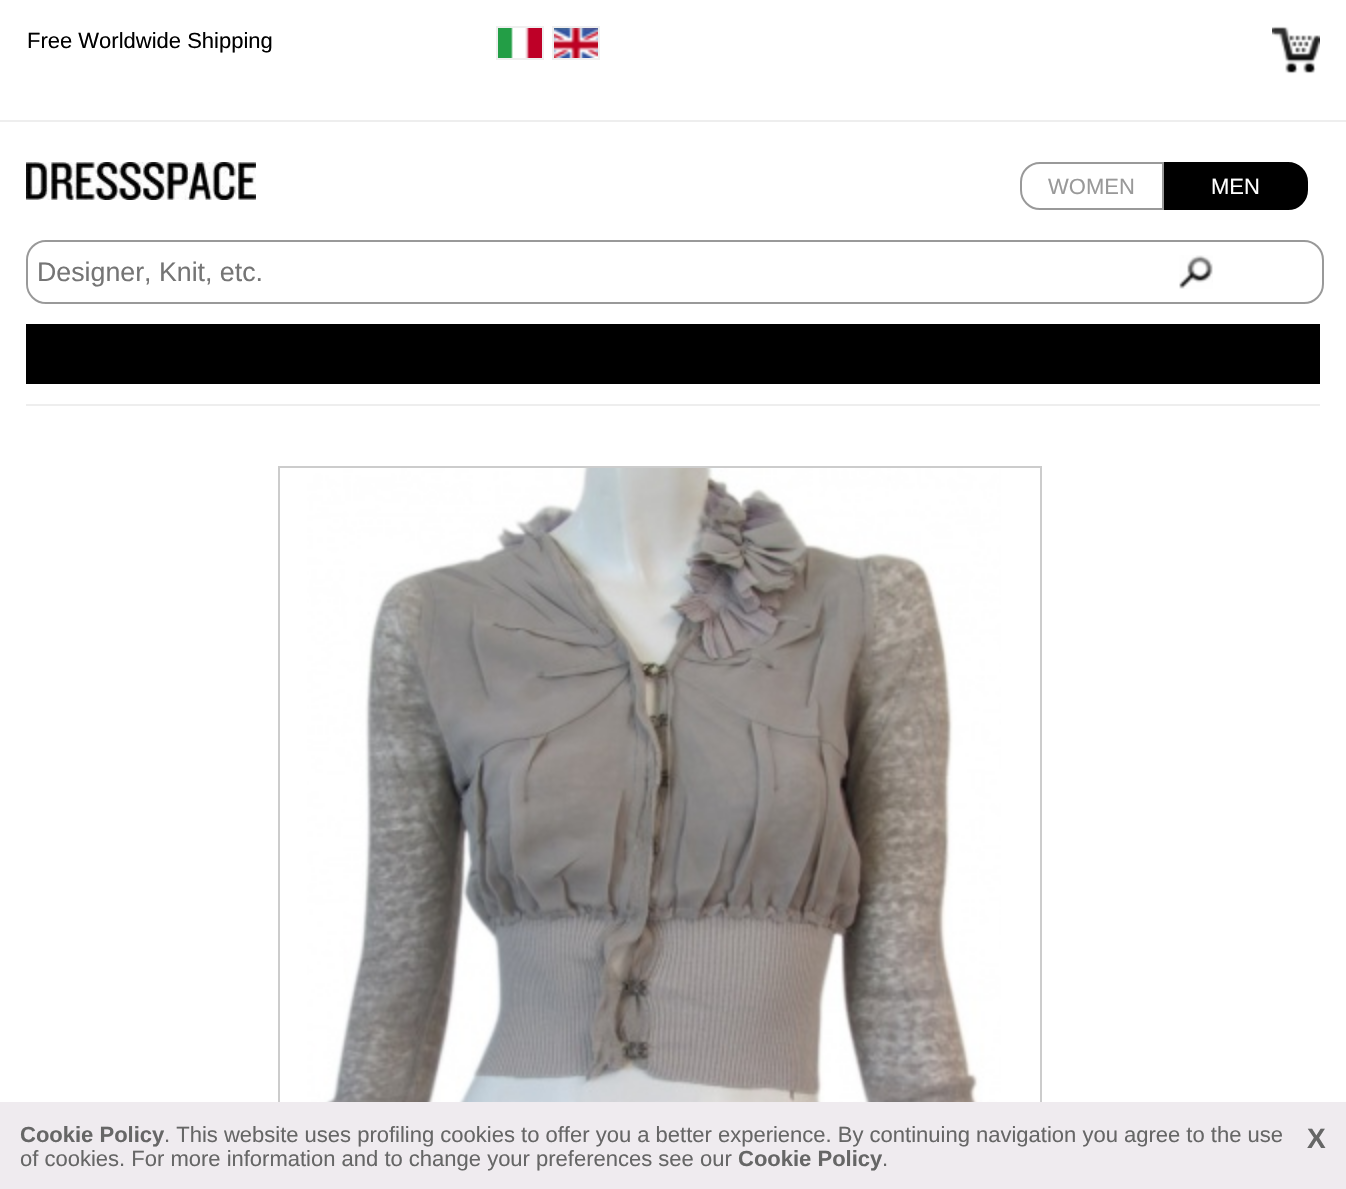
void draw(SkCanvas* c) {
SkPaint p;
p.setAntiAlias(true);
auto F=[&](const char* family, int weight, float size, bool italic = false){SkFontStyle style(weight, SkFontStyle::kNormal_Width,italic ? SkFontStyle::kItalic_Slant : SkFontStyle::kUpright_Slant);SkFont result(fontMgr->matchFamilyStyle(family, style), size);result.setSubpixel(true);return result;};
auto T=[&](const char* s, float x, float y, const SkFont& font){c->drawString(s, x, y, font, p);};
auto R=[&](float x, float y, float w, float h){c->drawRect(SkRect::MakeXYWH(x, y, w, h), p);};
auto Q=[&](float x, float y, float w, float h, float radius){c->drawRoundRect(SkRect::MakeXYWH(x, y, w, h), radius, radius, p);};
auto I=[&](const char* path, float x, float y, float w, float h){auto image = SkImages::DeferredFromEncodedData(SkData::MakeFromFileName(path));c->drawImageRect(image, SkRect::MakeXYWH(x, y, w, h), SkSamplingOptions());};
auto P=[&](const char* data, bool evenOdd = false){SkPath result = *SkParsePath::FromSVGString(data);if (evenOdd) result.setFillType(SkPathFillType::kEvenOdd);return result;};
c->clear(0xffffffff);
p.setColor(0xffeeeeee);
R(0,120,1346,2);
auto f1 = F("Liberation Sans",400,22);
p.setColor(0xff000000);
T("Free Worldwide Shipping",27,48,f1);
p.setStroke(true);
p.setStrokeWidth(2);
p.setColor(0xffefefef);
c->drawRect(SkRect::MakeXYWH(497,27,46,32),p);
c->drawRect(SkRect::MakeXYWH(553,27,46,32),p);
I("1.png",498,28,44,30);
I("2.png",554,28,44,30);
I("3.png",1272,26,48,48);
p.setStroke(false);
p.setColor(0xffeeeeee);
R(26,404,1294,2);
I("4.png",26,162,230,38);
p.setStroke(true);
p.setColor(0xff999999);
c->drawPath(P("M1040 163h123v46h-123c-10.5 0-19-8.5-19-19v-8c0-10.5 8.5-19 19-19z"),p);
p.setStroke(false);
T("WOMEN",1048,194,f1);
p.setColor(0xff000000);
c->drawPath(P("M1165 163h123c10.5 0 19 8.5 19 19v8c0 10.5-8.5 19-19 19h-123z"),p);
p.setStroke(true);
c->drawPath(P("M1165 163h123c10.5 0 19 8.5 19 19v8c0 10.5-8.5 19-19 19h-123z"),p);
p.setStroke(false);
p.setColor(0xffffffff);
T("MEN",1211,194,f1);
p.setStroke(true);
p.setColor(0xff999999);
c->drawRoundRect(SkRect::MakeXYWH(27,241,1296,62),19,19,p);
p.setStroke(false);
p.setColor(0xffffffff);
Q(28,242,1142,60,20);
auto f2 = F("Liberation Sans",400,26.75);
p.setColor(0xff757575);
T("Designer, Knit, etc.",37,281,f2);
I("5.png",1179,255,34,34);
p.setColor(0xff000000);
R(26,324,1294,60);
p.setStroke(true);
p.setColor(0xffcccccc);
c->drawRect(SkRect::MakeXYWH(279,467,762,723),p);
I("6.png",307,468,694,634);
p.setStroke(false);
p.setColor(0xffefebef);
R(0,1102,1346,87);
auto f3 = F("Liberation Sans",700,22);
p.setColor(0xff666666);
T("Cookie Policy",20,1142,f3);
T(". This website uses profiling cookies to offer you a better experience. By continuing navigation you agree to the use",164,1142,f1);
auto f4 = F("Liberation Sans",700,28);
T("X",1307,1148,f4);
T("of cookies. For more information and to change your preferences see our",20,1166,f1);
T("Cookie Policy",738,1166,f3);
T(".",882,1166,f1);
}
